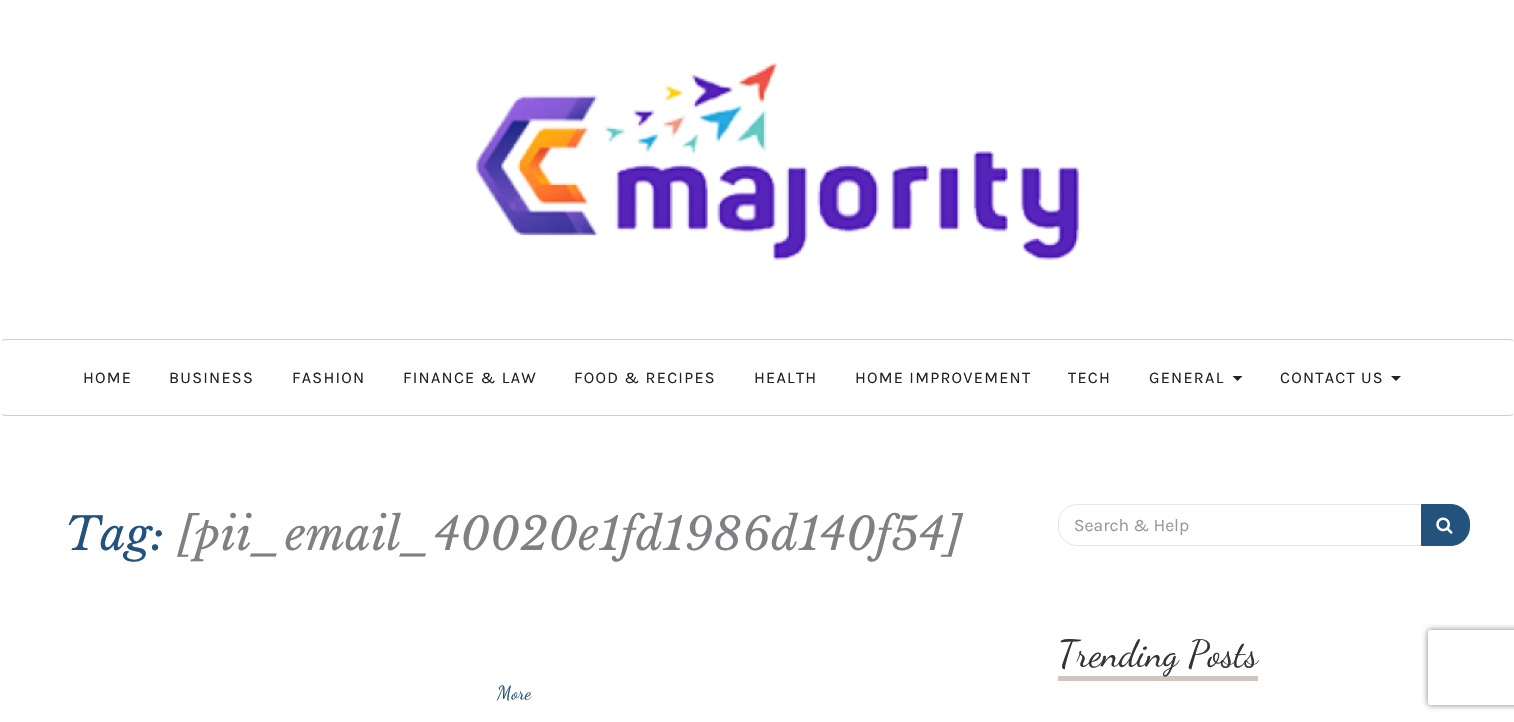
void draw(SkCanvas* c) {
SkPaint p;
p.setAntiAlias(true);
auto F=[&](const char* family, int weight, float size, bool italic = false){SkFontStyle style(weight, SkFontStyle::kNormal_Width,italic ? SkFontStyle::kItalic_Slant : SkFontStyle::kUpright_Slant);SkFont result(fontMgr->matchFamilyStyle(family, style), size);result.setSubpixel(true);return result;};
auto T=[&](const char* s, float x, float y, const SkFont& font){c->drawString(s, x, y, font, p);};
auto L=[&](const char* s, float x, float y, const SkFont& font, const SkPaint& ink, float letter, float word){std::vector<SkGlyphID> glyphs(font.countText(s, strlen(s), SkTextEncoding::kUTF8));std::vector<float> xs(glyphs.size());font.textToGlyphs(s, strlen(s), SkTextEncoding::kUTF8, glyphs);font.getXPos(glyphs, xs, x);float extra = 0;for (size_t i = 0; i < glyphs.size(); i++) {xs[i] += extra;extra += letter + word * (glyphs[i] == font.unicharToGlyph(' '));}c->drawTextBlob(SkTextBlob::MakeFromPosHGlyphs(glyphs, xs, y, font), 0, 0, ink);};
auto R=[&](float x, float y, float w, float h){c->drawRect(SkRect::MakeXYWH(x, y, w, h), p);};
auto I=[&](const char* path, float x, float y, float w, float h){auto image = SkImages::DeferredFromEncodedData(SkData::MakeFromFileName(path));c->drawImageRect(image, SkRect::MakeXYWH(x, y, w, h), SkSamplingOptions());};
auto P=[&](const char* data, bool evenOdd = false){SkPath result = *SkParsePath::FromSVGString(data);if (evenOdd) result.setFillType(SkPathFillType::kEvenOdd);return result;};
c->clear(0xffffffff);
I("1.png",476,62,605,199);
p.setStroke(true);
p.setStrokeWidth(1.2);
p.setColor(0xffcdced2);
c->drawPath(P("M2 340.5l3-1h1505l3 1"),p);
c->drawPath(P("M1513 414.5l-3 1h-1505l-3-1"),p);
auto f1 = F("Karla",400,16.25);
p.setStroke(false);
p.setColor(0xff212123);
L("HOME",83,383,f1,p,1.25,0);
L("BUSINESS",169,383,f1,p,1.25,0);
L("FASHION",292,383,f1,p,1.25,0);
L("FINANCE & LAW",403,383,f1,p,1.25,0);
L("FOOD & RECIPES",574,383,f1,p,1.25,0);
L("HEALTH",754,383,f1,p,1.25,0);
L("HOME IMPROVEMENT",855,383,f1,p,1.25,0);
L("TECH",1068,383,f1,p,1.25,0);
L("GENERAL",1149,383,f1,p,1.25,0);
c->drawPath(P("M1232.5 376h10l-5 5z"),p);
L("CONTACT US",1280,383,f1,p,1.25,0);
c->drawPath(P("M1391 376h10l-5 5z"),p);
auto f2 = F("Libre Baskerville",400,45,true);
p.setColor(0xff23527c);
L("Tag:",65,550,f2,p,.25,0);
p.setColor(0xff7f7f84);
L("[pii_email_40020e1fd1986d140f54]",178,550,f2,p,.25,0);
auto f3 = F("Dancing Script",400,19);
p.setColor(0xff23527c);
T("More",497,699,f3);
p.setStroke(true);
p.setStrokeWidth(1);
p.setColor(0xffe6e6ea);
c->drawPath(P("M1077 504.5h345.5v41h-345.5c-10 0-18.5-8.5-18.5-18.5v-4c0-10 8.5-18.5 18.5-18.5z"),p);
auto f4 = F("Karla",400,17.5);
p.setStroke(false);
p.setColor(0xff999999);
T("Search & Help",1074,531,f4);
p.setColor(0xff23527c);
c->drawPath(P("M1421.5 504.5h29.5c10 0 18.5 8.5 18.5 18.5v4c0 10-8.5 18.5-18.5 18.5h-29.5z"),p);
p.setStroke(true);
c->drawPath(P("M1421.5 504.5h29.5c10 0 18.5 8.5 18.5 18.5v4c0 10-8.5 18.5-18.5 18.5h-29.5z"),p);
I("2.png",1436,517,17,17);
p.setStroke(false);
p.setColor(0xffd0c5c1);
R(1058,676,200,5);
auto f5 = F("Dancing Script",400,37.5);
p.setColor(0xff333333);
T("Trending Posts",1058,666,f5);
c->save();
c->clipPath(P("M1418 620h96v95h-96zm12.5 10h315c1.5 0 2.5 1 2.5 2.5v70c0 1.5-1 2.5-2.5 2.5h-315c-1.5 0-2.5-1-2.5-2.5v-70c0-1.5 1-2.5 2.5-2.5z",true),true);
p.setColor(0xff808080);
p.setMaskFilter(SkMaskFilter::MakeBlur(kNormal_SkBlurStyle, 3));
c->drawRoundRect(SkRect::MakeXYWH(1428,630,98,75),2.5,2.5,p);
p.setMaskFilter(nullptr);
c->restore();
}
